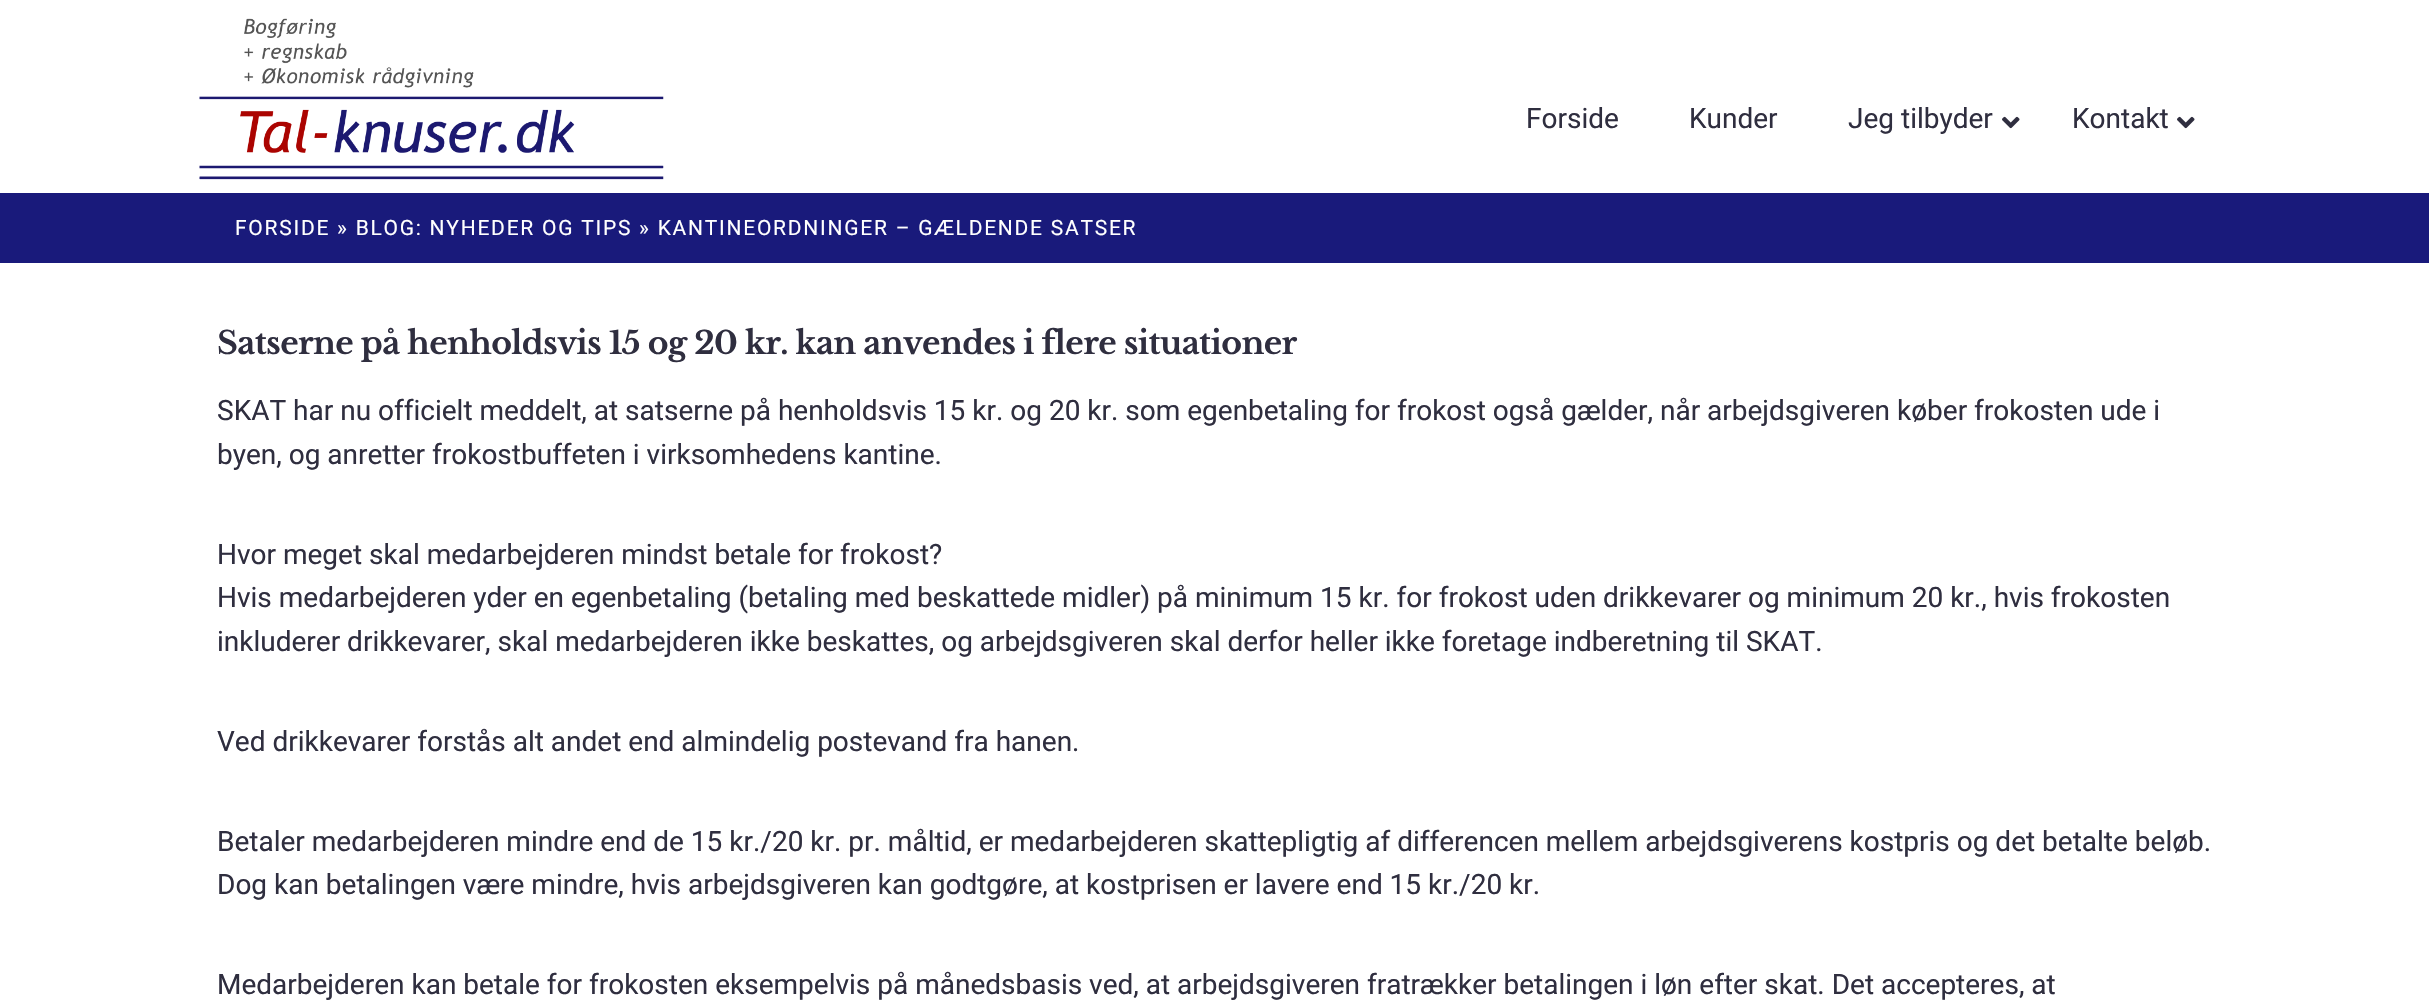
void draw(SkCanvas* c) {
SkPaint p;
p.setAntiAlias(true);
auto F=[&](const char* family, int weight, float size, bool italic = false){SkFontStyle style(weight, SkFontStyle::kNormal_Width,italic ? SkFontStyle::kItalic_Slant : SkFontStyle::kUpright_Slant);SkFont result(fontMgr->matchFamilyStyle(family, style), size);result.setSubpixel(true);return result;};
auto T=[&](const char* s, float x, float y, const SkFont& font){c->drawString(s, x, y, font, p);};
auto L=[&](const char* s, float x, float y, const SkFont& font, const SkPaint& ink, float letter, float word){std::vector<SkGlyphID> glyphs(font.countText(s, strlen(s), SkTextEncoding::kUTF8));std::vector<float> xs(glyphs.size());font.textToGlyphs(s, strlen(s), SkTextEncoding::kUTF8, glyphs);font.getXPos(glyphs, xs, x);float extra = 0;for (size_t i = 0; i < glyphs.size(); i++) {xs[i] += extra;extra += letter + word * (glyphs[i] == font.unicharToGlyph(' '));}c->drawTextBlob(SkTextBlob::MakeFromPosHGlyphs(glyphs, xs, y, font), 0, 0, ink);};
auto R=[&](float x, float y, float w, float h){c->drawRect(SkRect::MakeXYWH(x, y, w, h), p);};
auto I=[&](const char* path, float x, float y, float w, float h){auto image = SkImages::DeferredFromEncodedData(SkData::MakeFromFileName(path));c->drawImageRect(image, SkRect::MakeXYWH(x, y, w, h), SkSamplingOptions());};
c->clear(0xffffffff);
I("1.png",199,18,465,162);
auto f1 = F("Roboto",400,28);
p.setColor(0xff2f2e3f);
T("Forside",1526,128,f1);
T("Kunder",1689,128,f1);
T("Jeg tilbyder",1848,128,f1);
I("2.png",2002,116,18,13);
T("Kontakt",2072,128,f1);
I("2.png",2177,116,18,13);
p.setColor(0xff191a7b);
R(0,193,2429,70);
auto f2 = F("Roboto",400,21);
p.setColor(0xffffffff);
L("FORSIDE » BLOG: NYHEDER OG TIPS » KANTINEORDNINGER – GÆLDENDE SATSER",235,235,f2,p,1.75,0);
auto f3 = F("Libre Baskerville",700,31.5);
p.setColor(0xff2f2e3f);
L("Satserne på henholdsvis 15 og 20 kr. kan anvendes i flere situationer",217,354,f3,p,-.63,0);
T("SKAT har nu officielt meddelt, at satserne på henholdsvis 15 kr. og 20 kr. som egenbetaling for frokost også gælder, når arbejdsgiveren køber frokosten ude i",217,420,f1);
T("byen, og anretter frokostbuffeten i virksomhedens kantine.",217,464,f1);
T("Hvor meget skal medarbejderen mindst betale for frokost?",217,564,f1);
T("Hvis medarbejderen yder en egenbetaling (betaling med beskattede midler) på minimum 15 kr. for frokost uden drikkevarer og minimum 20 kr., hvis frokosten",217,607,f1);
T("inkluderer drikkevarer, skal medarbejderen ikke beskattes, og arbejdsgiveren skal derfor heller ikke foretage indberetning til SKAT.",217,651,f1);
T("Ved drikkevarer forstås alt andet end almindelig postevand fra hanen.",217,751,f1);
T("Betaler medarbejderen mindre end de 15 kr./20 kr. pr. måltid, er medarbejderen skattepligtig af differencen mellem arbejdsgiverens kostpris og det betalte beløb.",217,851,f1);
T("Dog kan betalingen være mindre, hvis arbejdsgiveren kan godtgøre, at kostprisen er lavere end 15 kr./20 kr.",217,894,f1);
T("Medarbejderen kan betale for frokosten eksempelvis på månedsbasis ved, at arbejdsgiveren fratrækker betalingen i løn efter skat. Det accepteres, at",217,994,f1);
}
